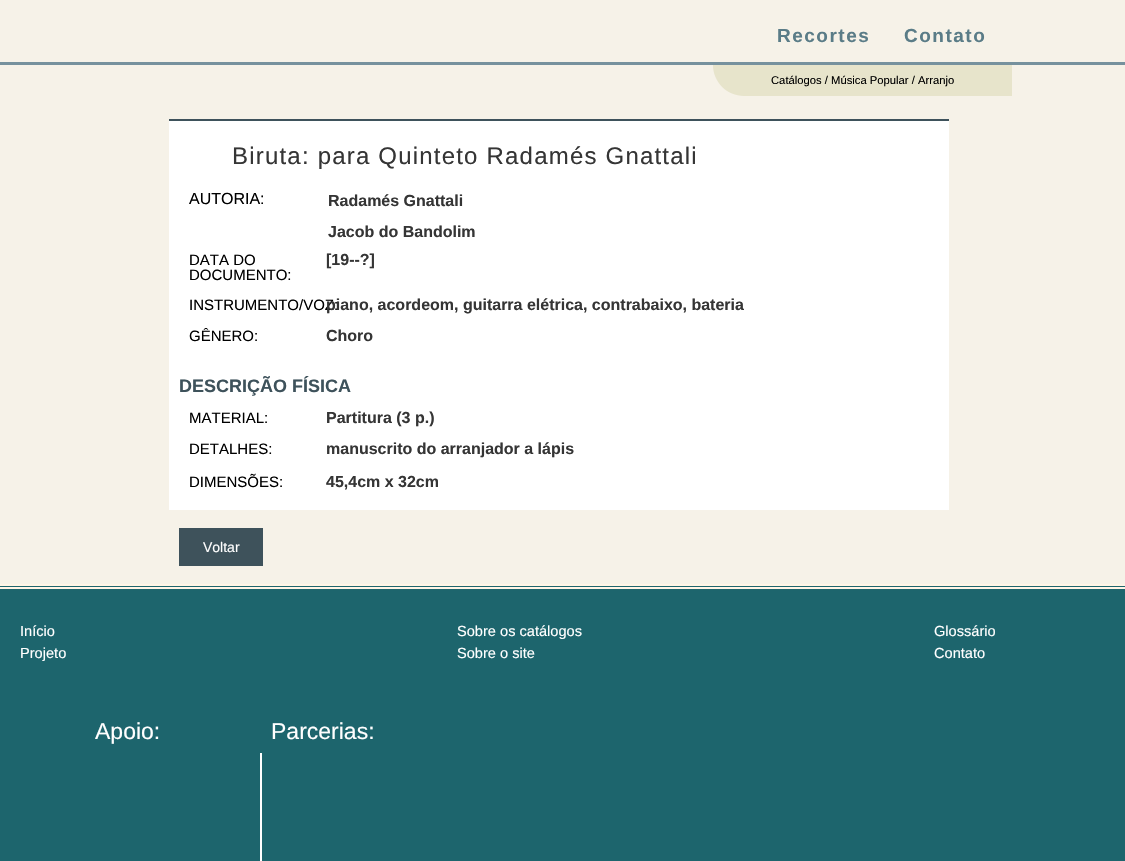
void draw(SkCanvas* c) {
SkPaint p;
p.setAntiAlias(true);
auto F=[&](const char* family, int weight, float size, bool italic = false){SkFontStyle style(weight, SkFontStyle::kNormal_Width,italic ? SkFontStyle::kItalic_Slant : SkFontStyle::kUpright_Slant);SkFont result(fontMgr->matchFamilyStyle(family, style), size);result.setSubpixel(true);return result;};
auto T=[&](const char* s, float x, float y, const SkFont& font){c->drawString(s, x, y, font, p);};
auto L=[&](const char* s, float x, float y, const SkFont& font, const SkPaint& ink, float letter, float word){std::vector<SkGlyphID> glyphs(font.countText(s, strlen(s), SkTextEncoding::kUTF8));std::vector<float> xs(glyphs.size());font.textToGlyphs(s, strlen(s), SkTextEncoding::kUTF8, glyphs);font.getXPos(glyphs, xs, x);float extra = 0;for (size_t i = 0; i < glyphs.size(); i++) {xs[i] += extra;extra += letter + word * (glyphs[i] == font.unicharToGlyph(' '));}c->drawTextBlob(SkTextBlob::MakeFromPosHGlyphs(glyphs, xs, y, font), 0, 0, ink);};
auto R=[&](float x, float y, float w, float h){c->drawRect(SkRect::MakeXYWH(x, y, w, h), p);};
auto P=[&](const char* data, bool evenOdd = false){SkPath result = *SkParsePath::FromSVGString(data);if (evenOdd) result.setFillType(SkPathFillType::kEvenOdd);return result;};
c->clear(0xfff6f2e8);
p.setColor(0xff76919d);
R(0,62,1125,3);
auto f1 = F("Liberation Sans",700,19);
p.setColor(0xff5a7c87);
L("Recortes",777,42,f1,p,1.5,0);
L("Contato",904,42,f1,p,1.5,0);
p.setColor(0xffe7e4cb);
c->drawPath(P("M713 65h299v31h-268c-17 0-31-14-31-31z"),p);
auto f2 = F("Liberation Sans",400,11.25);
p.setColor(0xff000000);
T("Catálogos / Música Popular / Arranjo",771,84,f2);
p.setColor(0xffffffff);
R(169,121,780,389);
p.setColor(0xff3e525b);
R(169,119,780,2);
auto f3 = F("Liberation Sans",400,24);
p.setColor(0xff353535);
L("Biruta: para Quinteto Radamés Gnattali",232,164,f3,p,1.2,0);
auto f4 = F("Liberation Sans",400,16);
p.setColor(0xff000000);
T("AUTORIA:",189,204,f4);
auto f5 = F("Liberation Sans",700,16);
p.setColor(0xff353535);
T("Radamés Gnattali",328,206,f5);
T("Jacob do Bandolim",328,237,f5);
auto f6 = F("Liberation Sans",400,15);
p.setColor(0xff000000);
T("DATA DO",189,265,f6);
T("DOCUMENTO:",189,280,f6);
p.setColor(0xff353535);
T("[19--?]",326,265,f5);
p.setColor(0xff000000);
T("INSTRUMENTO/VOZ:",189,310,f6);
p.setColor(0xff353535);
T("piano, acordeom, guitarra elétrica, contrabaixo, bateria",326,310,f5);
p.setColor(0xff000000);
T("GÊNERO:",189,341,f6);
p.setColor(0xff353535);
T("Choro",326,341,f5);
auto f7 = F("Liberation Sans",700,18);
p.setColor(0xff3e525b);
T("DESCRIÇÃO FÍSICA",179,392,f7);
p.setColor(0xff000000);
T("MATERIAL:",189,423,f6);
p.setColor(0xff353535);
T("Partitura (3 p.)",326,423,f5);
p.setColor(0xff000000);
T("DETALHES:",189,454,f6);
p.setColor(0xff353535);
T("manuscrito do arranjador a lápis",326,454,f5);
p.setColor(0xff000000);
T("DIMENSÕES:",189,487,f6);
p.setColor(0xff353535);
T("45,4cm x 32cm",326,487,f5);
p.setColor(0xff3e525b);
R(179,528,84,38);
auto f8 = F("Liberation Sans",400,14);
p.setColor(0xffffffff);
T("Voltar",203,552,f8);
p.setColor(0xff1d656d);
R(0,586,1125,275);
p.setColor(0xfffff5e6);
R(0,584,1125,2);
R(0,587,1125,2);
auto f9 = F("Liberation Sans",400,14.6);
p.setColor(0xffffffff);
T("Início",20,636,f9);
T("Projeto",20,658,f9);
T("Sobre os catálogos",457,636,f9);
T("Sobre o site",457,658,f9);
T("Glossário",934,636,f9);
T("Contato",934,658,f9);
auto f10 = F("Liberation Sans",400,23);
T("Apoio:",95,739,f10);
T("Parcerias:",271,739,f10);
R(260,753,2,108);
}
